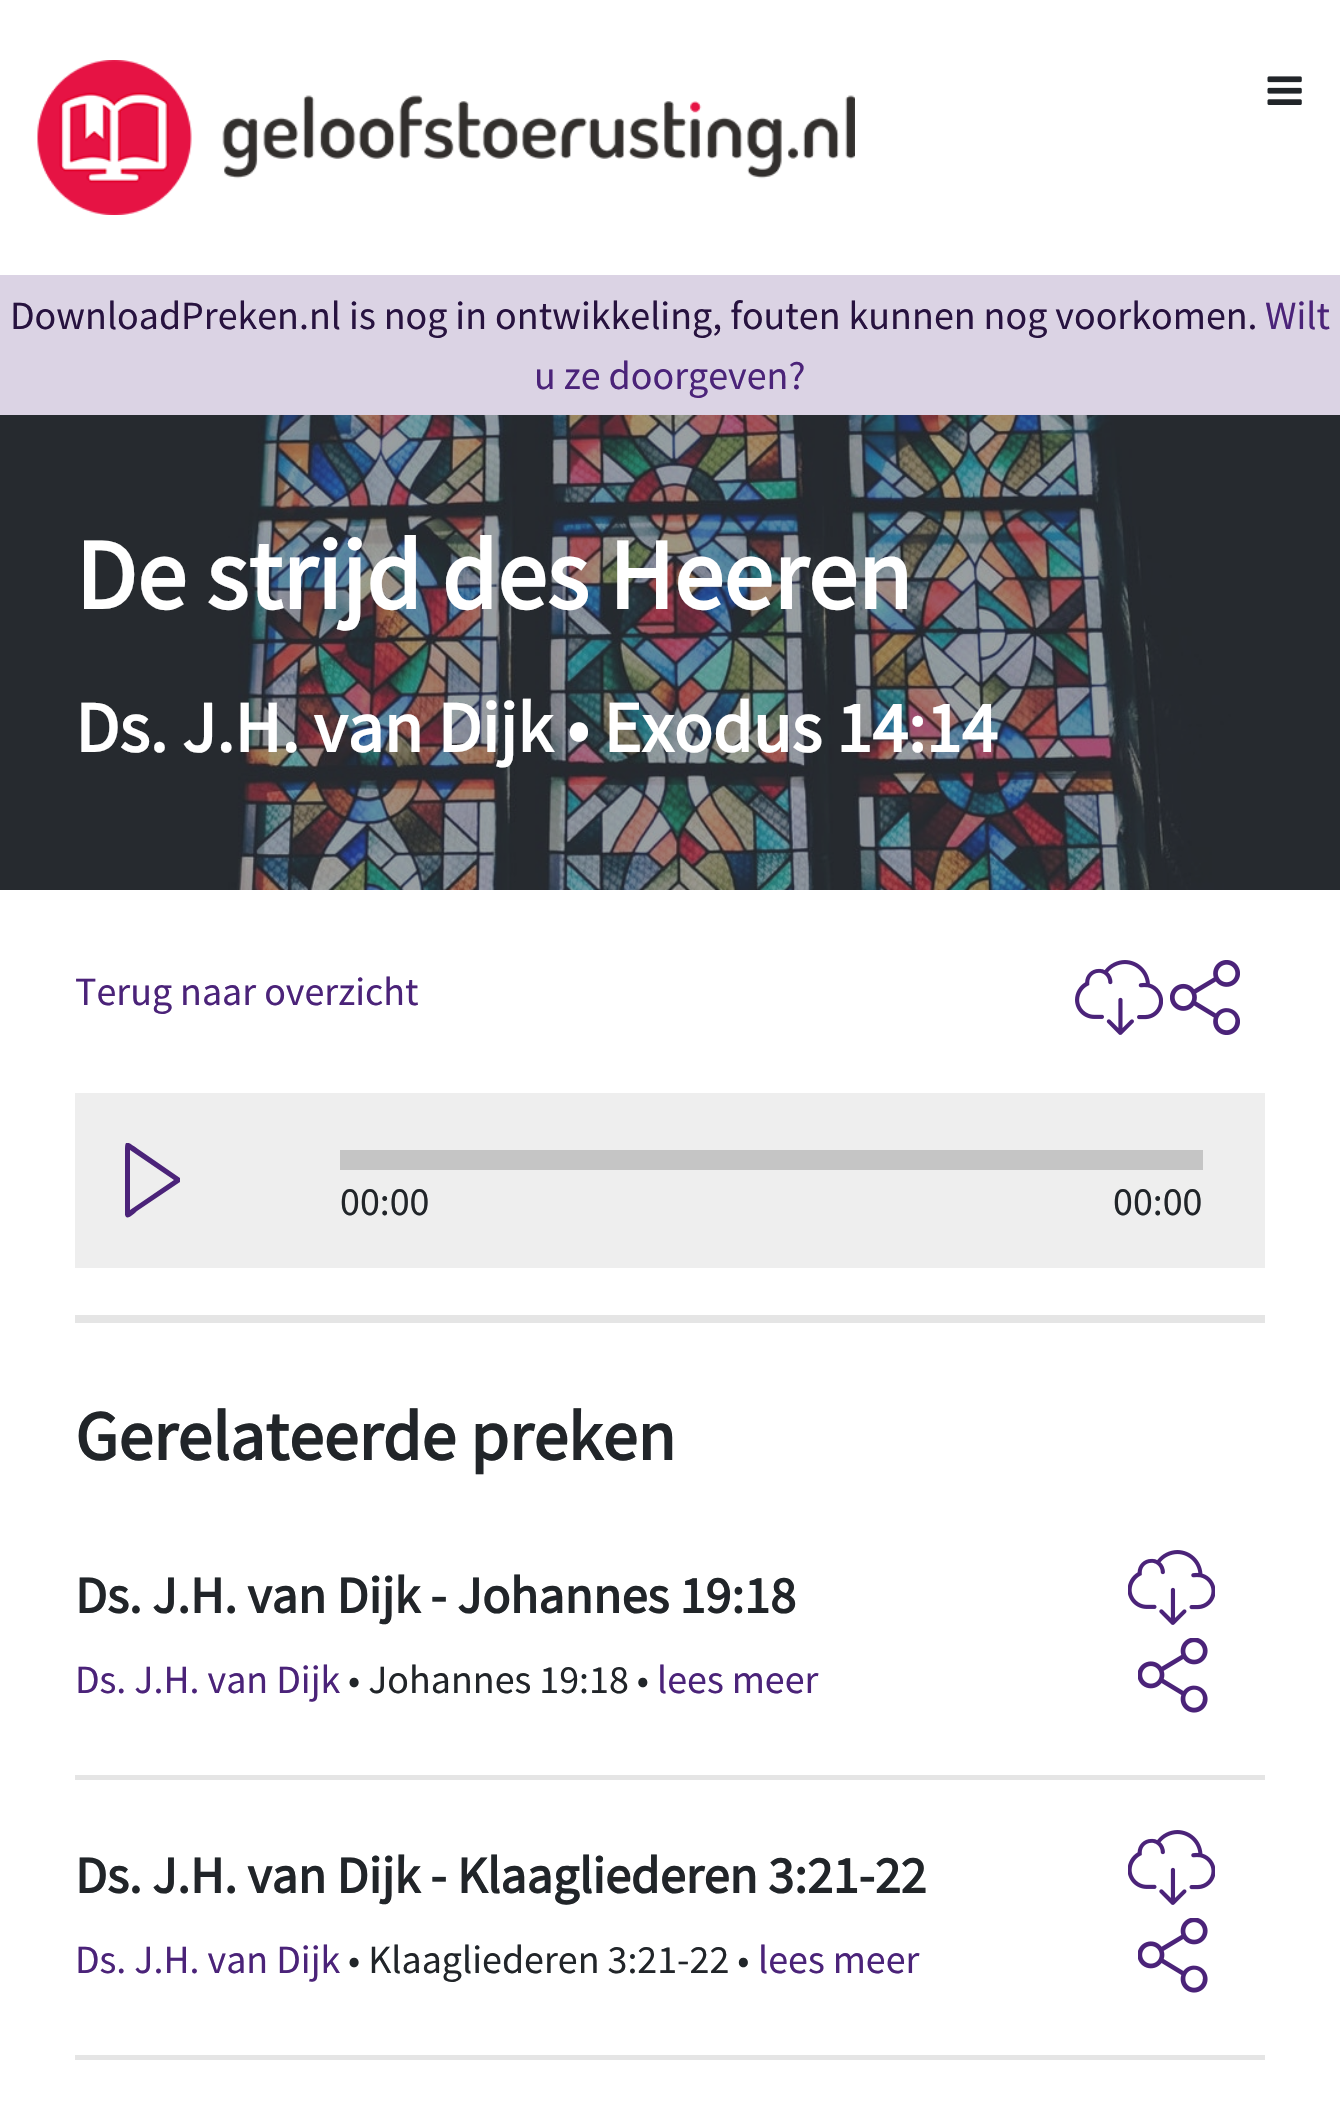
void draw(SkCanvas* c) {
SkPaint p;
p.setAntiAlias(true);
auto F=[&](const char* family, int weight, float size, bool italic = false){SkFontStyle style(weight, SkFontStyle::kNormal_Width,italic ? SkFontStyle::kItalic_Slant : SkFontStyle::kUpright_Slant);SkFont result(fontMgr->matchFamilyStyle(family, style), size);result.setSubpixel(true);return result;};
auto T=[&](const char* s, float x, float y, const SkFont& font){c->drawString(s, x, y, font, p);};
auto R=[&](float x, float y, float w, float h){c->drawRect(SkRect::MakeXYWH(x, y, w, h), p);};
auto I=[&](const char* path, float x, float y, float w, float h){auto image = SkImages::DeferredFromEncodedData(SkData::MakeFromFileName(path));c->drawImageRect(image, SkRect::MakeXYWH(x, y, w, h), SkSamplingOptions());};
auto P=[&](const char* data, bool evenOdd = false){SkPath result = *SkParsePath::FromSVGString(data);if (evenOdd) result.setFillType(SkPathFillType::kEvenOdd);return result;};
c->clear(0xffffffff);
I("1.png",37,60,818,155);
I("2.png",1267,76,35,29);
p.setColor(0xffdbd3e4);
R(0,275,1340,140);
auto f1 = F("Source Sans Pro",400,40);
p.setColor(0xff27123f);
T("DownloadPreken.nl is nog in ontwikkeling, fouten kunnen nog voorkomen.",10,329,f1);
p.setColor(0xff4b2379);
T("Wilt",1265,329,f1);
T("u ze doorgeven?",534,389,f1);
I("3.png",0,415,1340,475);
auto f2 = F("Source Sans Pro",700,100);
p.setColor(0xffffffff);
T("De strijd des Heeren",75,609,f2);
auto f3 = F("Source Sans Pro",700,72);
T("Ds. J.H. van Dijk • Exodus 14:14",75,752,f3);
p.setColor(0xff4b2379);
T("Terug naar overzicht",75,1005,f1);
I("4.png",1075,960,88,75);
I("5.png",1170,960,70,75);
p.setColor(0xffeeeeee);
R(75,1093,1190,175);
c->save();
c->clipRect(SkRect::MakeXYWH(125,1143,55,75));
p.setColor(0xff4b2379);
c->drawPath(P("M180 1178l-42-29c-14-10-13-9-13 8v58l1 2c3 2 9-4 11-6l43-29c1-1 1-3 0-4zm-50 32v-60l44 30z"),p);
c->restore();
p.setColor(0xffc5c5c5);
R(340,1150,863,20);
p.setColor(0xff212529);
T("00:00",340,1215,f1);
T("00:00",1113,1215,f1);
p.setColor(0xffe5e5e5);
R(75,1315,1190,8);
auto f4 = F("Source Sans Pro",700,70);
p.setColor(0xff212529);
T("Gerelateerde preken",75,1460,f4);
p.setColor(0xffe5e5e5);
R(75,1775,1190,5);
auto f5 = F("Source Sans Pro",700,52);
p.setColor(0xff212529);
T("Ds. J.H. van Dijk - Johannes 19:18",75,1613,f5);
p.setColor(0xff4b2379);
T("Ds. J.H. van Dijk",75,1693,f1);
p.setColor(0xff212529);
T("• Johannes 19:18 •",348,1693,f1);
p.setColor(0xff4b2379);
T("lees meer",657,1693,f1);
I("6.png",1128,1550,87,75);
I("7.png",1138,1638,70,75);
p.setColor(0xffe5e5e5);
R(75,2055,1190,5);
p.setColor(0xff212529);
T("Ds. J.H. van Dijk - Klaagliederen 3:21-22",75,1893,f5);
p.setColor(0xff4b2379);
T("Ds. J.H. van Dijk",75,1973,f1);
p.setColor(0xff212529);
T("• Klaagliederen 3:21-22 •",348,1973,f1);
p.setColor(0xff4b2379);
T("lees meer",758,1973,f1);
I("6.png",1128,1830,87,75);
I("7.png",1138,1918,70,75);
}
